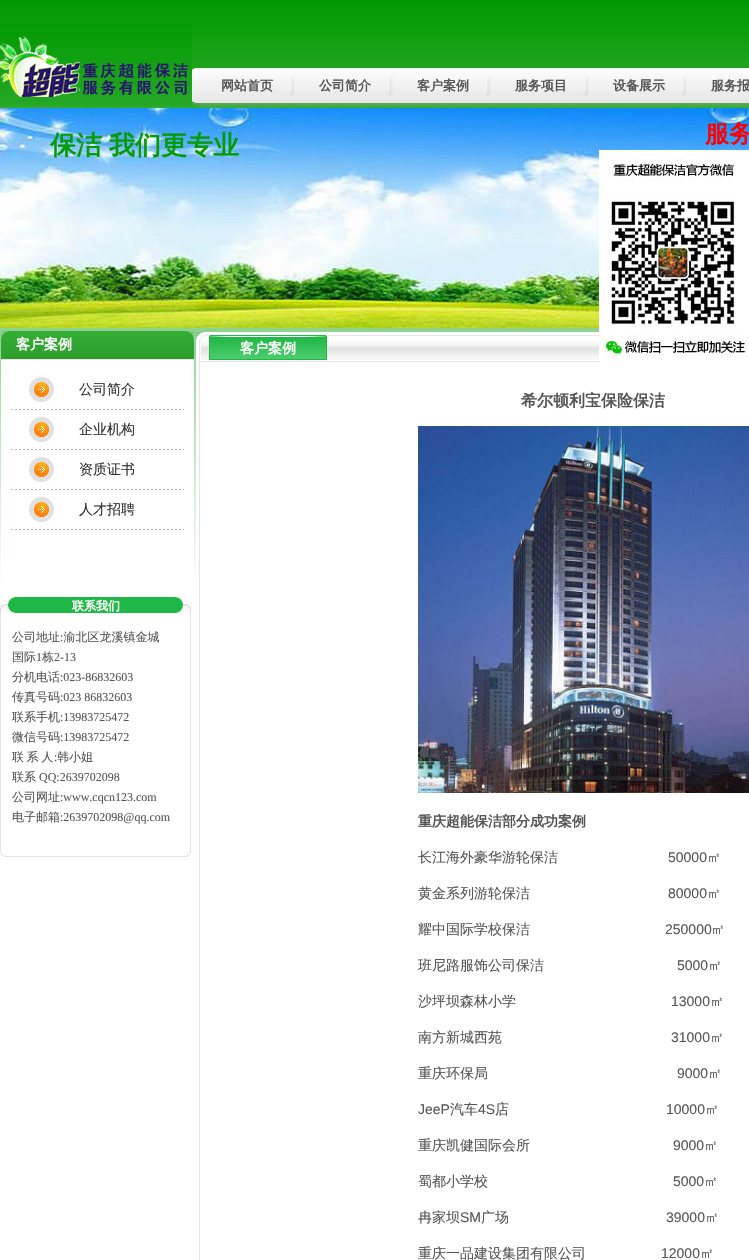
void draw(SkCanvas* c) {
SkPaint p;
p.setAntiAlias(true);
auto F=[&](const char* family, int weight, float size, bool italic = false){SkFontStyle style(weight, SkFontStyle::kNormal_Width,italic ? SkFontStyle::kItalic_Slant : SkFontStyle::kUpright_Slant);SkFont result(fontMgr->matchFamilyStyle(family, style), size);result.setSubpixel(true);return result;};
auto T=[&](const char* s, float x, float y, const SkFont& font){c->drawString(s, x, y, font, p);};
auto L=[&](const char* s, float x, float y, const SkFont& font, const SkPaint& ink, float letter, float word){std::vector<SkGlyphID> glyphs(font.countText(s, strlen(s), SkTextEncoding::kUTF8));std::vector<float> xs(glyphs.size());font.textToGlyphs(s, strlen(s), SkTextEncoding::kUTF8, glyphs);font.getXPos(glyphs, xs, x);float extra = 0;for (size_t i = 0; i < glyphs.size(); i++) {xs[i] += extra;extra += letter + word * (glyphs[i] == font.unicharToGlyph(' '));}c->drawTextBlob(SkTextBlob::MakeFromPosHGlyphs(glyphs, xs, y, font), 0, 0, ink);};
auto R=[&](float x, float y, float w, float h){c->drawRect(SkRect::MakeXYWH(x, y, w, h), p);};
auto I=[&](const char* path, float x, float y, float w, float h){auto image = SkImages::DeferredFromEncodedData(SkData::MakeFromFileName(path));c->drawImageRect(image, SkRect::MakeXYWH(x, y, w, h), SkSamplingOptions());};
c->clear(0xffffffff);
I("1.png",0,0,749,582);
I("4.png",190,68,8,40);
I("2.png",0,24,192,82);
I("3.png",198,68,551,40);
I("5.png",198,77,98,30);
auto f1 = F("WenQuanYi Zen Hei",700,13);
p.setColor(0xff555555);
T("网站首页",221,90,f1);
I("5.png",296,77,98,30);
T("公司简介",319,90,f1);
I("5.png",394,77,98,30);
T("客户案例",417,90,f1);
I("5.png",492,77,98,30);
T("服务项目",515,90,f1);
I("5.png",590,77,98,30);
T("设备展示",613,90,f1);
I("6.png",688,103,61,4);
T("服务报",711,90,f1);
I("7.png",0,108,749,220);
auto f2 = F("WenQuanYi Zen Hei",700,26);
p.setColor(0xff059b04);
T("保洁",50,154,f2);
T("我们更专业",109,154,f2);
auto f3 = F("WenQuanYi Zen Hei",700,24);
p.setColor(0xffff0000);
T("服务",705,142,f3);
p.setColor(0xffffffff);
R(1,360,193,222);
I("8.png",1,331,193,28);
p.setColor(0xffe4e4e4);
R(1,359,193,1);
I("9.png",185,331,9,9);
auto f4 = F("WenQuanYi Zen Hei",700,14);
p.setColor(0xffffffff);
T("客户案例",16,349,f4);
I("10.png",11,377,173,33);
auto f5 = F("WenQuanYi Zen Hei",500,14);
p.setColor(0xff303030);
T("公司简介",79,394,f5);
I("10.png",11,417,173,33);
T("企业机构",79,434,f5);
I("10.png",11,457,173,33);
T("资质证书",79,474,f5);
I("10.png",11,497,173,33);
T("人才招聘",79,514,f5);
p.setColor(0xffffffff);
R(196,332,553,250);
I("11.png",196,332,9,9);
p.setColor(0xffe5e5e5);
R(0,615,1,242);
R(190,615,1,242);
I("12.png",0,597,176,18);
auto f6 = F("WenQuanYi Zen Hei",700,12);
p.setColor(0xffffffff);
T("联系我们",72,610,f6);
I("13.png",176,597,15,18);
auto f7 = F("WenQuanYi Zen Hei",500,12);
p.setColor(0xff555555);
T("公司地址 渝北区龙溪镇金城",12,641,f7);
auto f8 = F("Liberation Serif",400,12);
T(":",60,641,f8);
T("国际",12,661,f7);
T("1",36,661,f8);
T("栋",42,661,f7);
T("2-13",54,661,f8);
T("分机电话",12,681,f7);
T(":023-86832603",60,681,f8);
T("传真号码",12,701,f7);
T(":023 86832603",60,701,f8);
T("联系手机",12,721,f7);
T(":13983725472",60,721,f8);
T("微信号码",12,741,f7);
T(":13983725472",60,741,f8);
L("联 系 人",12,761,f7,p,0,-1);
T(":",54,761,f8);
T("韩小姐",57,761,f7);
T("联系",12,781,f7);
T("QQ:2639702098",39,781,f8);
T("公司网址",12,801,f7);
T(":www.cqcn123.com",60,801,f8);
T("电子邮箱",12,821,f7);
T(":2639702098@qq.com",60,821,f8);
I("14.png",0,850,185,7);
I("15.png",185,850,6,7);
p.setStroke(true);
p.setStrokeWidth(1);
p.setColor(0xffe4e4e4);
c->drawRect(SkRect::MakeXYWH(199.5,335.5,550,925),p);
I("16.png",199,335,400,26);
p.setStroke(false);
R(199,361,400,1);
p.setColor(0xffffffff);
T("客户案例",240,353,f4);
auto f9 = F("WenQuanYi Zen Hei",700,16);
p.setColor(0xff555555);
T("希尔顿利宝保险保洁",521,406,f9);
I("17.png",418,426,331,367);
T("重庆超能保洁部分成功案例",418,826,f4);
T("长江海外豪华游轮保洁",418,862,f5);
auto f10 = F("Liberation Sans",400,14);
T("50000",668,862,f10);
T("㎡",707,862,f5);
T("黄金系列游轮保洁",418,898,f5);
T("80000",668,898,f10);
T("㎡",707,898,f5);
T("耀中国际学校保洁",418,934,f5);
T("250000",665,934,f10);
T("㎡",711,934,f5);
T("班尼路服饰公司保洁",418,970,f5);
T("5000",677,970,f10);
T("㎡",708,970,f5);
T("沙坪坝森林小学",418,1006,f5);
T("13000",671,1006,f10);
T("㎡",710,1006,f5);
T("南方新城西苑",418,1042,f5);
T("31000",671,1042,f10);
T("㎡",710,1042,f5);
T("重庆环保局",418,1078,f5);
T("9000",677,1078,f10);
T("㎡",708,1078,f5);
T("JeeP",418,1114,f10);
T("汽车",450,1114,f5);
T("4S",478,1114,f10);
T("店",495,1114,f5);
T("10000",666,1114,f10);
T("㎡",705,1114,f5);
T("重庆凯健国际会所",418,1150,f5);
T("9000",673,1150,f10);
T("㎡",704,1150,f5);
T("蜀都小学校",418,1186,f5);
T("5000",673,1186,f10);
T("㎡",704,1186,f5);
T("冉家坝",418,1222,f5);
T("SM",460,1222,f10);
T("广场",481,1222,f5);
T("39000",666,1222,f10);
T("㎡",705,1222,f5);
T("重庆一品建设集团有限公司",418,1258,f5);
T("12000",661,1258,f10);
T("㎡",700,1258,f5);
I("18.png",599,150,150,212);
}
